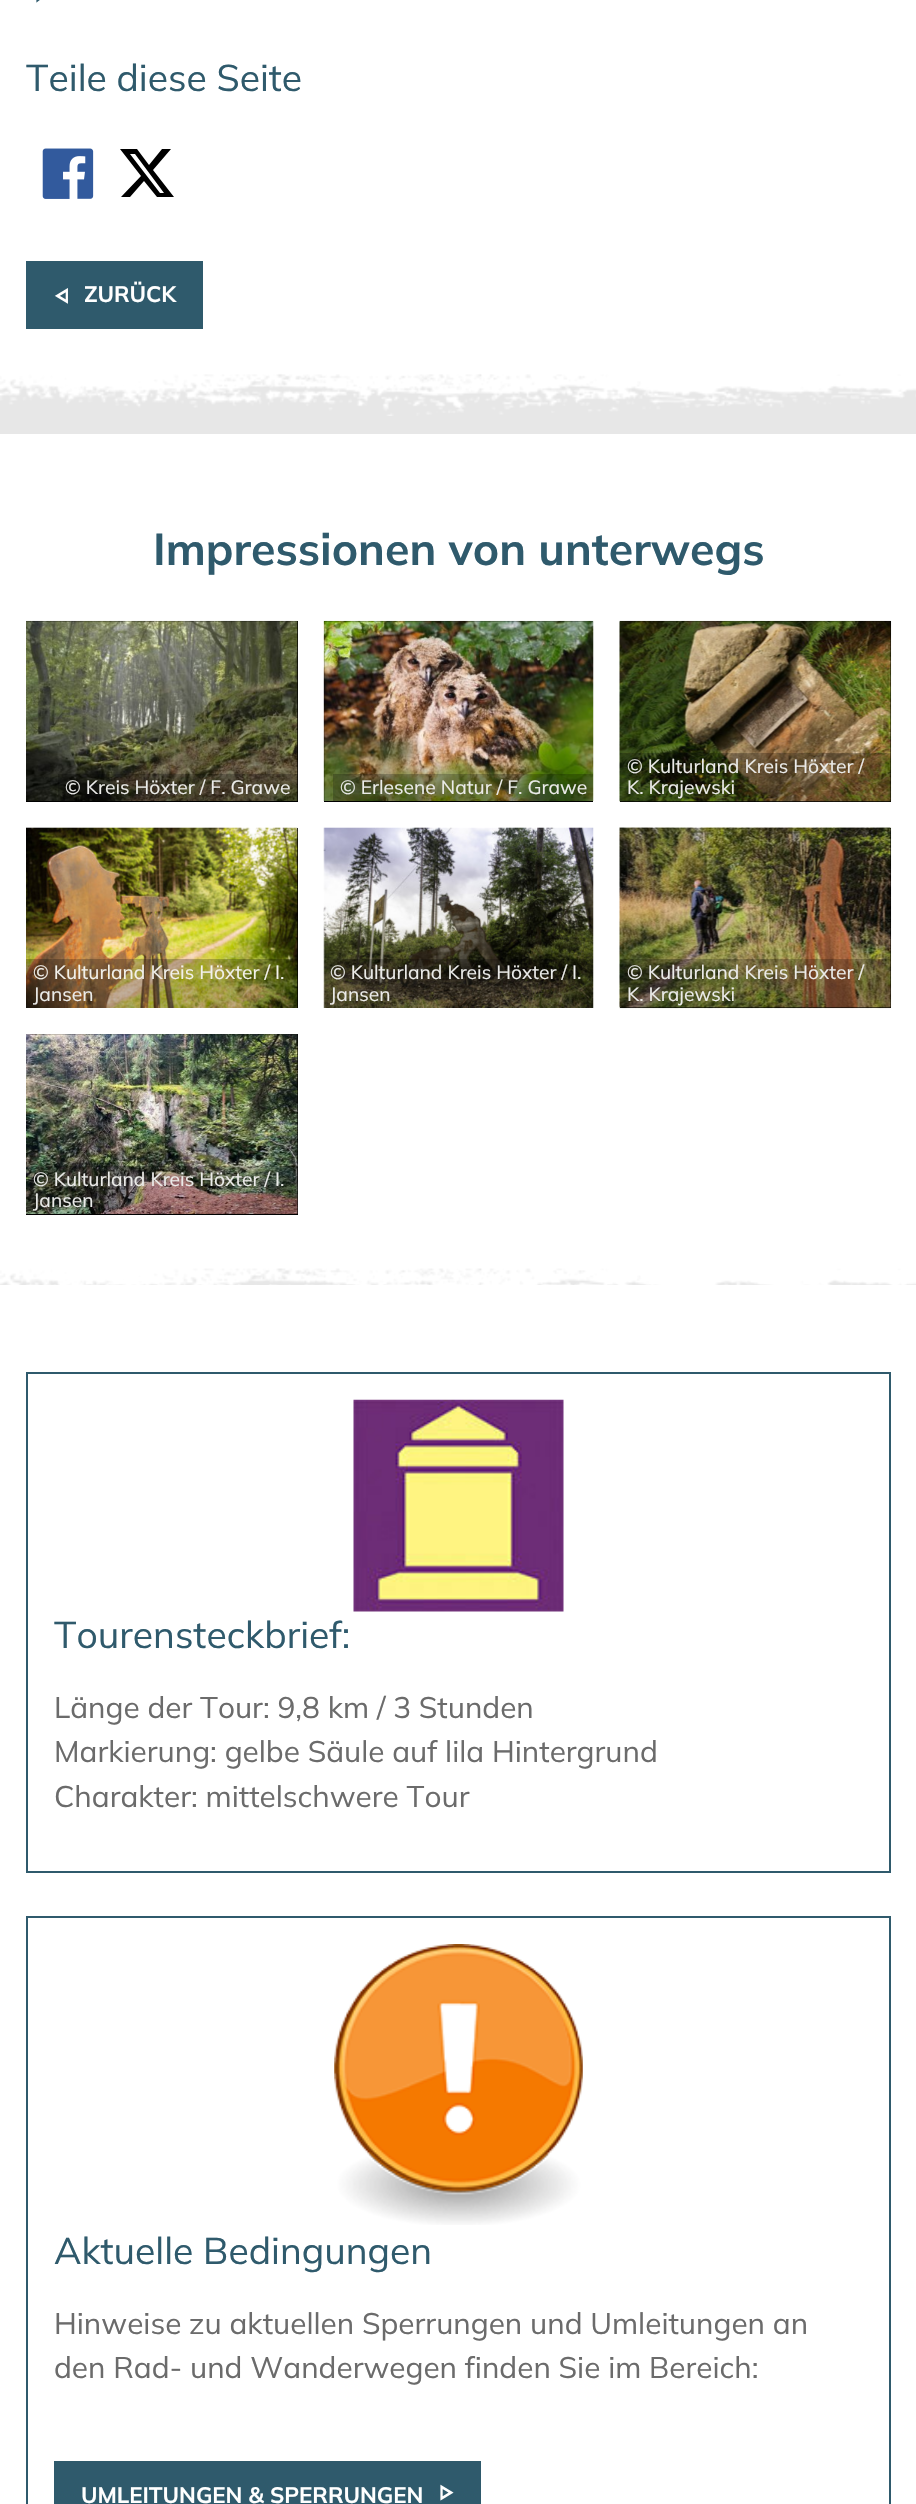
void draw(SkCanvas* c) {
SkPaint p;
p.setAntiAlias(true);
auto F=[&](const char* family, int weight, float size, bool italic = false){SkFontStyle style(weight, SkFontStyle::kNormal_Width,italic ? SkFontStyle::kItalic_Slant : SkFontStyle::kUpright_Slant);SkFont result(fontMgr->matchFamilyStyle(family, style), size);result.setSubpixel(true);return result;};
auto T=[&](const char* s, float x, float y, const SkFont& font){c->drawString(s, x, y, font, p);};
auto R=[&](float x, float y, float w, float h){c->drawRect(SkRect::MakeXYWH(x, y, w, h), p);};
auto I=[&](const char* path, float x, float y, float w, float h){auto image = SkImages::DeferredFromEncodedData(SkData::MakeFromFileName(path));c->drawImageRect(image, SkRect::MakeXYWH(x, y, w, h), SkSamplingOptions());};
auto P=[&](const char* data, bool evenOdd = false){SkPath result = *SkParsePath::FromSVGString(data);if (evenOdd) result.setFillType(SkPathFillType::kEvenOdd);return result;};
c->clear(0xffffffff);
I("1.png",36,0,4,3);
auto f1 = F("Mulish",200,37.25);
p.setColor(0xff2f5a6c);
T("Teile diese Seite",26,91,f1);
I("2.png",42,148,52,51);
p.setColor(0xff000000);
c->drawPath(P("M162 149h9l-18 21l21 27h-17l-13-16l-14 16h-9l20-21l-21-27h17l12 16zm-2 44h4l-29-39h-5z"),p);
p.setColor(0xff2f5a6c);
R(26,261,177,68);
I("3.png",54,288,14,16);
auto f2 = F("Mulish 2",200,22.25);
p.setColor(0xffffffff);
T("ZURÜCK",84,302,f2);
p.setColor(0xffe7e7e7);
R(0,373,916,61);
I("4.png",0,373,916,43);
auto f3 = F("Mulish 2",200,44.6);
p.setColor(0xff2f5a6c);
T("Impressionen von unterwegs",153,565,f3);
p.setColor(0xff000000);
R(26,621,272,181);
I("5.png",26,620,272,181);
p.setColor(0x3b000000);
R(58,774,240,27);
auto f4 = F("Mulish",200,19.25);
p.setColor(0xffebebe9);
T("© Kreis Höxter / F. Grawe",65,794,f4);
p.setColor(0xff000000);
R(324,621,269,181);
I("6.png",323,620,271,181);
p.setColor(0x3b000000);
R(333,774,260,27);
p.setColor(0xffebebe9);
T("© Erlesene Natur / F. Grawe",340,794,f4);
p.setColor(0xff000000);
R(620,621,271,181);
I("7.png",619,620,273,182);
p.setColor(0x3b000000);
R(620,753,271,49);
p.setColor(0xffebebe9);
T("© Kulturland Kreis Höxter /",627,773,f4);
T("K. Krajewski",627,794,f4);
p.setColor(0xff000000);
R(297,828,1,180);
I("8.png",26,827,272,181);
p.setColor(0x3b000000);
R(26,959,272,49);
p.setColor(0xfff2f1eb);
T("© Kulturland Kreis Höxter / I.",33,979,f4);
p.setColor(0xffebebe9);
T("Jansen",33,1001,f4);
I("9.png",323,827,271,181);
p.setColor(0x3b000000);
R(324,959,269,49);
p.setColor(0xffebebe9);
T("© Kulturland Kreis Höxter / I.",330,979,f4);
T("Jansen",330,1001,f4);
p.setColor(0xff000000);
R(620,828,271,180);
I("10.png",619,827,273,182);
p.setColor(0x3b000000);
R(620,959,271,49);
p.setColor(0xffebebe9);
T("© Kulturland Kreis Höxter /",627,979,f4);
T("K. Krajewski",627,1001,f4);
p.setColor(0xff000000);
R(26,1034,272,181);
I("11.png",26,1034,272,180);
p.setColor(0x3b000000);
R(26,1166,272,48);
p.setColor(0xffebebe9);
T("© Kulturland Kreis Höxter / I.",33,1186,f4);
T("Jansen",33,1207,f4);
p.setColor(0xffe7e7e7);
R(0,1268,916,17);
I("12.png",0,1267,916,18);
p.setStroke(true);
p.setStrokeWidth(2);
p.setColor(0xff2f5a6c);
c->drawRect(SkRect::MakeXYWH(27,1373,863,499),p);
I("13.png",353,1399,211,213);
p.setStroke(false);
T("Tourensteckbrief:",54,1648,f1);
auto f5 = F("Mulish",200,29.75);
p.setColor(0xff6b6b6b);
T("Länge der Tour: 9,8 km / 3 Stunden",54,1718,f5);
T("Markierung: gelbe Säule auf lila Hintergrund",54,1762,f5);
T("Charakter: mittelschwere Tour",54,1807,f5);
p.setStroke(true);
p.setColor(0xff2f5a6c);
c->drawRect(SkRect::MakeXYWH(27,1917,863,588),p);
I("14.png",334,1944,249,281);
p.setStroke(false);
T("Aktuelle Bedingungen",54,2264,f1);
p.setColor(0xff6b6b6b);
T("Hinweise zu aktuellen Sperrungen und Umleitungen an",54,2334,f5);
T("den Rad- und Wanderwegen finden Sie im Bereich:",54,2378,f5);
p.setColor(0xff2f5a6c);
R(54,2461,427,43);
p.setColor(0xffffffff);
T("UMLEITUNGEN & SPERRUNGEN",81,2503,f2);
I("15.png",440,2484,14,17);
}
